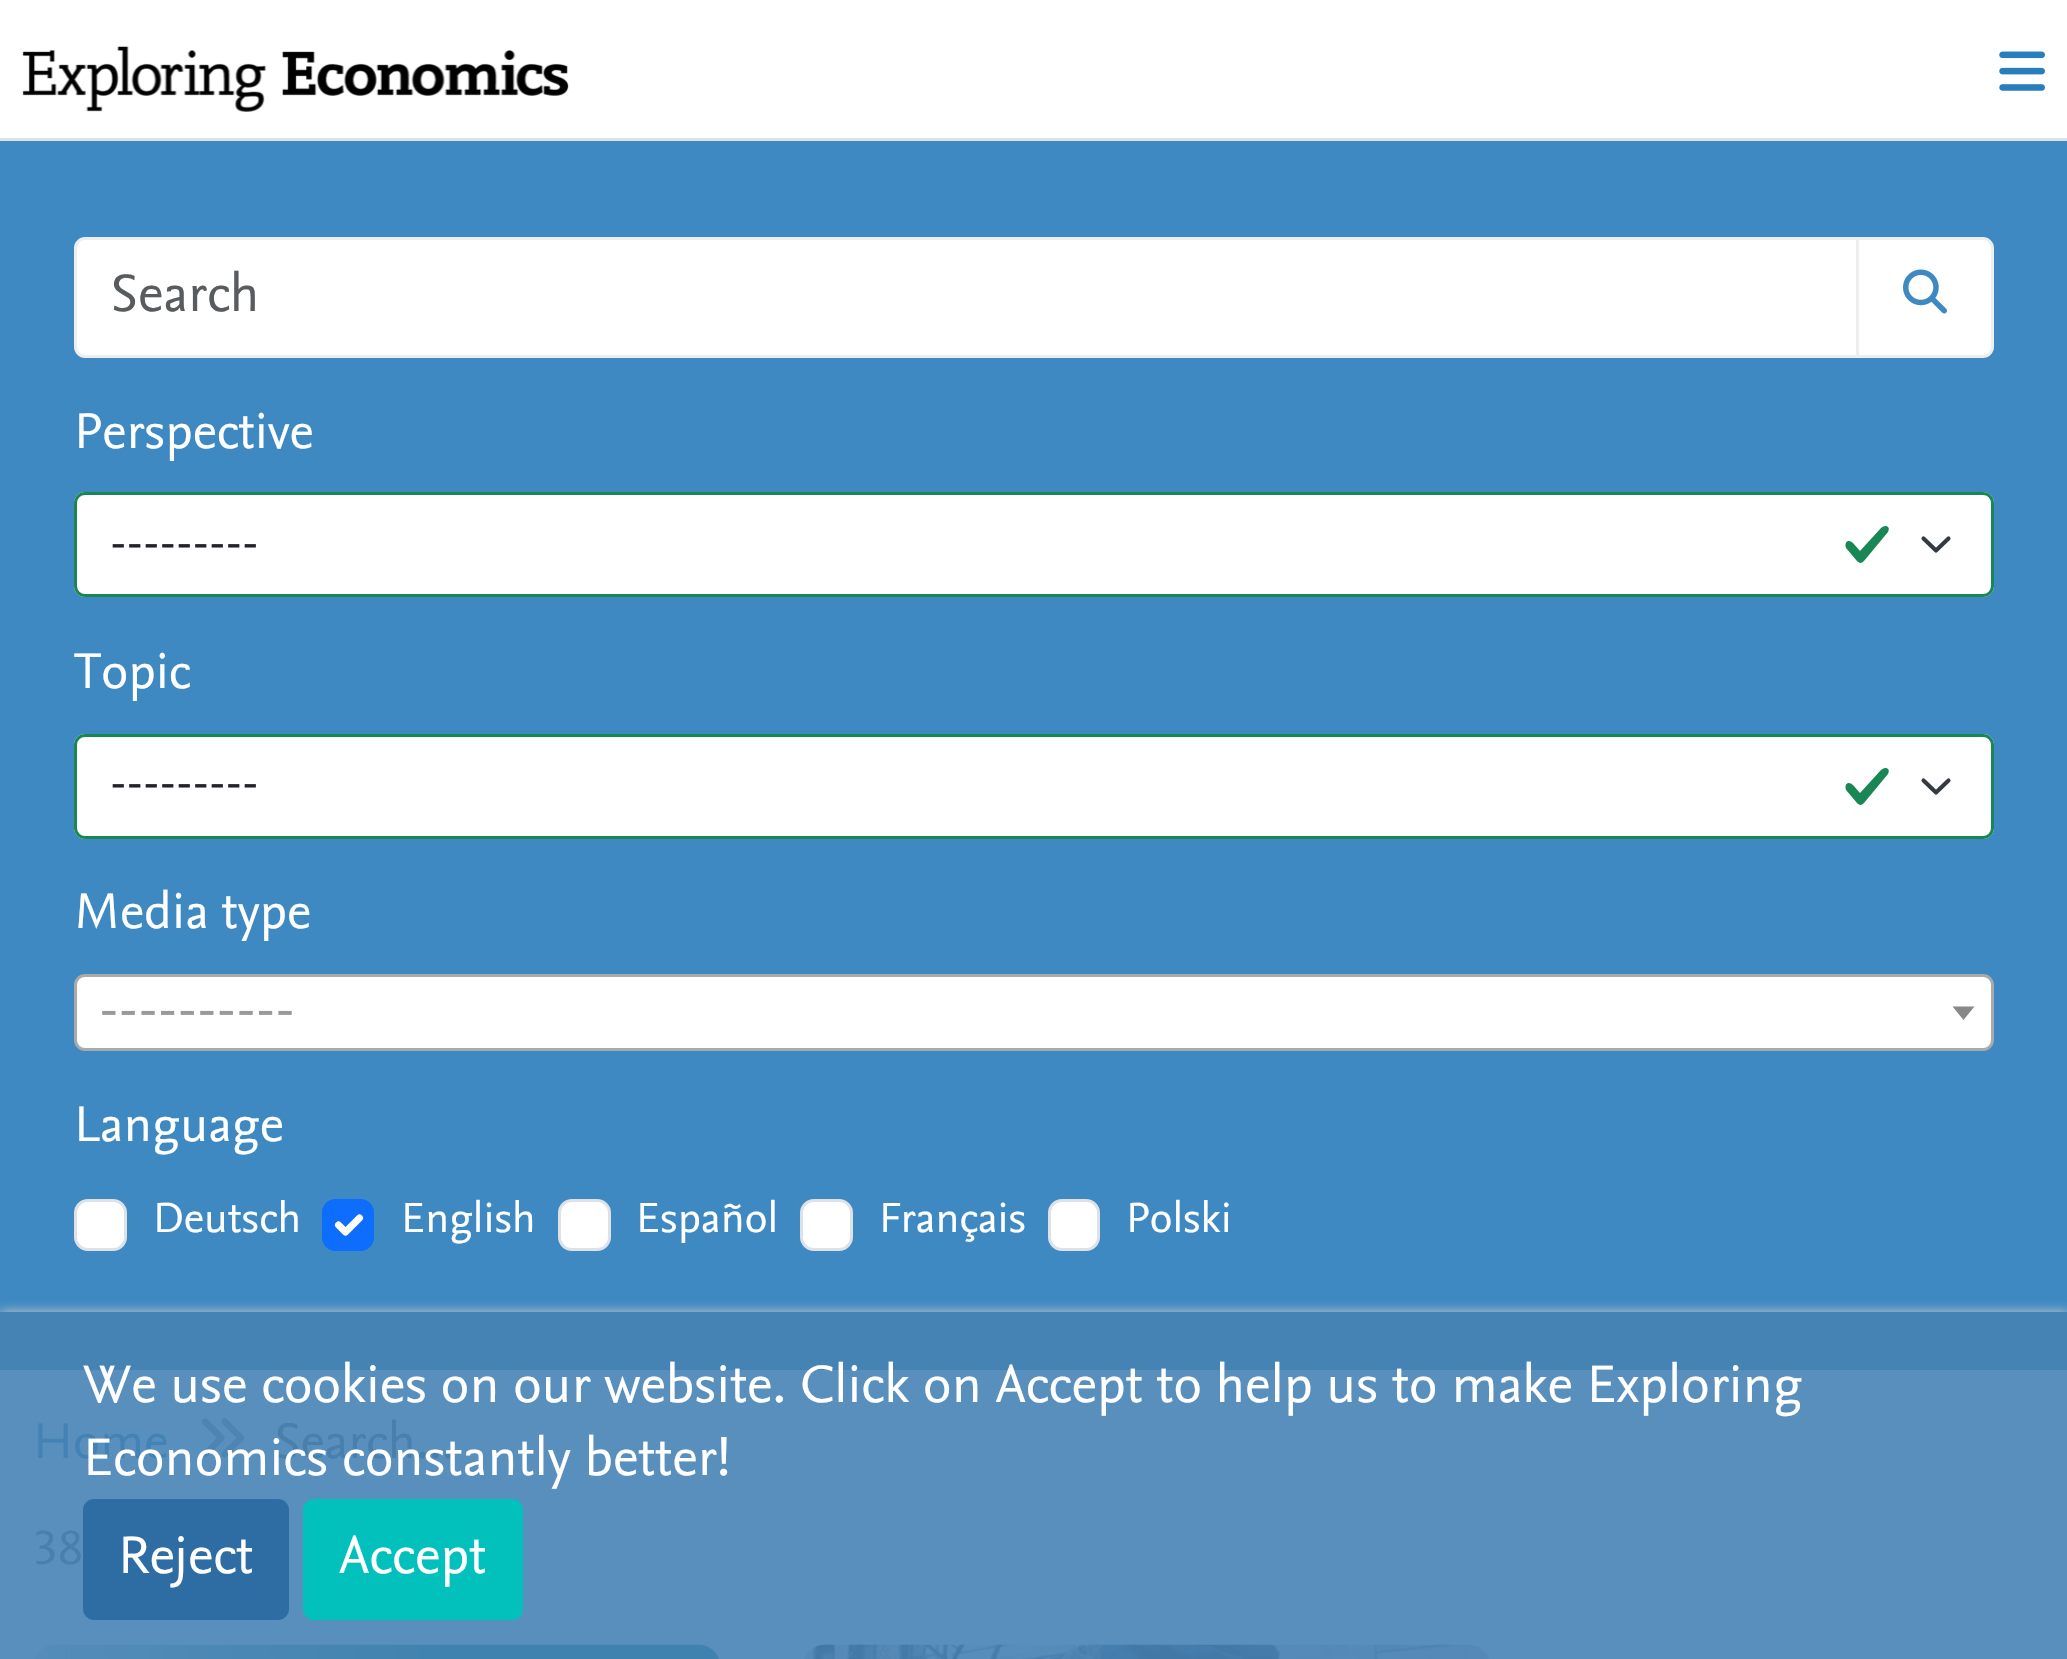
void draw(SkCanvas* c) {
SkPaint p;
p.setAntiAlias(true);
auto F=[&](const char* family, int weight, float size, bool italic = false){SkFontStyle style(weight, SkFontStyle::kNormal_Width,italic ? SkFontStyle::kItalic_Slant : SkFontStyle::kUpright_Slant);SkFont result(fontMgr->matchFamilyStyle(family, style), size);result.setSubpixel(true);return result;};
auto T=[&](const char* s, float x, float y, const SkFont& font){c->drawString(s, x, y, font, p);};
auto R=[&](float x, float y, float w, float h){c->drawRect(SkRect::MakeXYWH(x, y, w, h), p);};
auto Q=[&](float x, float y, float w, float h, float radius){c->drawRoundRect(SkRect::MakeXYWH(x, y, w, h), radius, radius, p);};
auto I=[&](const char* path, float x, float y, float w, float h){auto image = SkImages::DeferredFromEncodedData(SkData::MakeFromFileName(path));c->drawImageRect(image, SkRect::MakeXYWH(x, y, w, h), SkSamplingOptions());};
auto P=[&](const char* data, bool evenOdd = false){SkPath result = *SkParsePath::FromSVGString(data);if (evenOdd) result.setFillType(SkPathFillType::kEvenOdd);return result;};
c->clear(0xffffffff);
p.setColor(0xff598fbc);
R(0,1370,2067,289);
p.setColor(0xffdee2e6);
R(0,138,2067,3);
I("1.png",22,46,547,66);
I("2.png",1999,51,46,40);
p.setColor(0xff3e89c1);
R(0,141,2067,1171);
p.setColor(0xff4583b5);
R(0,1312,2067,58);
p.setColor(0xffffffff);
c->drawPath(P("M85 238.5h1772.5v118h-1772.5c-5 0-9.5-4.5-9.5-9.5v-99c0-5 4.5-9.5 9.5-9.5z"),p);
p.setStroke(true);
p.setStrokeWidth(3);
p.setColor(0xffeeeeee);
c->drawPath(P("M85 238.5h1772.5v118h-1772.5c-5 0-9.5-4.5-9.5-9.5v-99c0-5 4.5-9.5 9.5-9.5z"),p);
auto f1 = F("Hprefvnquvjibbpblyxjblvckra",400,55);
p.setStroke(false);
p.setColor(0xff595c5f);
T("Search",110,311,f1);
p.setColor(0xffffffff);
c->drawPath(P("M1857.5 238.5h125.5c5 0 9.5 4.5 9.5 9.5v99c0 5-4.5 9.5-9.5 9.5h-125.5z"),p);
p.setStroke(true);
p.setColor(0xffeeeeee);
c->drawPath(P("M1857.5 238.5h125.5c5 0 9.5 4.5 9.5 9.5v99c0 5-4.5 9.5-9.5 9.5h-125.5z"),p);
I("3.png",1903,269,44,45);
auto f2 = F("Hprefvnquvjibbpblyxjblvckra",400,52.25);
p.setStroke(false);
p.setColor(0xffffffff);
T("Perspective",74,448,f2);
Q(74,492,1920,105,11);
p.setColor(0xff198754);
c->drawPath(P("M1857 561l-11-13c-2-7 3-9 7-5l7 8l21-23c4-4 10-2 7 4l-24 29c-3 3-5 2-7 0"),p);
p.setStroke(true);
p.setStrokeWidth(4.1);
p.setStrokeCap(SkPaint::kRound_Cap);
p.setStrokeJoin(SkPaint::kRound_Join);
p.setColor(0xff343a40);
c->drawPath(P("M1923.5 538.5l12.5 12l12.5-12"),p);
p.setStrokeWidth(3);
p.setStrokeCap(SkPaint::kButt_Cap);
p.setStrokeJoin(SkPaint::kMiter_Join);
p.setColor(0xff198754);
c->drawRoundRect(SkRect::MakeXYWH(75.5,493.5,1917,102),9.5,9.5,p);
auto f3 = F("Hprefvnquvjibbpblyxjblvckra",400,44);
p.setStroke(false);
p.setColor(0xff212529);
T("---------",110,556,f3);
p.setColor(0xffffffff);
T("Topic",74,688,f2);
Q(74,734,1920,105,11);
p.setColor(0xff198754);
c->drawPath(P("M1857 803l-11-13c-2-7 3-9 7-5l7 8l21-23c4-4 10-2 7 4l-24 29c-3 3-5 2-7 0"),p);
p.setStroke(true);
p.setStrokeWidth(4.1);
p.setStrokeCap(SkPaint::kRound_Cap);
p.setStrokeJoin(SkPaint::kRound_Join);
p.setColor(0xff343a40);
c->drawPath(P("M1923.5 780.5l12.5 12l12.5-12"),p);
p.setStrokeWidth(3);
p.setStrokeCap(SkPaint::kButt_Cap);
p.setStrokeJoin(SkPaint::kMiter_Join);
p.setColor(0xff198754);
c->drawRoundRect(SkRect::MakeXYWH(75.5,735.5,1917,102),9.5,9.5,p);
p.setStroke(false);
p.setColor(0xff212529);
T("---------",110,796,f3);
p.setColor(0xffffffff);
T("Media type",74,928,f2);
c->drawRoundRect(SkRect::MakeXYWH(75.5,975.5,1917,74),9.5,9.5,p);
p.setStroke(true);
p.setColor(0xffaaaaaa);
c->drawRoundRect(SkRect::MakeXYWH(75.5,975.5,1917,74),9.5,9.5,p);
p.setStroke(false);
p.setColor(0xff999999);
T("----------",99,1025,f2);
p.setColor(0xff888888);
c->drawPath(P("M1952.5 1006.5h22l-11 13.5z"),p);
p.setColor(0xffffffff);
T("Language",74,1141,f2);
c->drawRoundRect(SkRect::MakeXYWH(75.5,1200.5,50,49),12.5,12.5,p);
p.setStroke(true);
p.setColor(0xffdee2e6);
c->drawRoundRect(SkRect::MakeXYWH(75.5,1200.5,50,49),12.5,12.5,p);
p.setStroke(false);
p.setColor(0xffffffff);
T("Deutsch",153,1232,f3);
p.setColor(0xff0d6efd);
Q(322,1199,52,52,14);
p.setStroke(true);
p.setStrokeWidth(7);
p.setStrokeCap(SkPaint::kRound_Cap);
p.setStrokeJoin(SkPaint::kRound_Join);
p.setColor(0xffffffff);
c->drawPath(P("M338.5 1225l7 7l14-14"),p);
p.setStrokeWidth(3);
p.setStrokeCap(SkPaint::kButt_Cap);
p.setStrokeJoin(SkPaint::kMiter_Join);
p.setColor(0xff0d6efd);
c->drawRoundRect(SkRect::MakeXYWH(323.5,1200.5,49,49),12.5,12.5,p);
p.setStroke(false);
p.setColor(0xffffffff);
T("English",401,1232,f3);
c->drawRoundRect(SkRect::MakeXYWH(559.5,1200.5,50,49),12.5,12.5,p);
p.setStroke(true);
p.setColor(0xffdee2e6);
c->drawRoundRect(SkRect::MakeXYWH(559.5,1200.5,50,49),12.5,12.5,p);
p.setStroke(false);
p.setColor(0xffffffff);
T("Español",636,1232,f3);
c->drawRoundRect(SkRect::MakeXYWH(801.5,1200.5,50,49),12.5,12.5,p);
p.setStroke(true);
p.setColor(0xffdee2e6);
c->drawRoundRect(SkRect::MakeXYWH(801.5,1200.5,50,49),12.5,12.5,p);
p.setStroke(false);
p.setColor(0xffffffff);
T("Français",879,1232,f3);
c->drawRoundRect(SkRect::MakeXYWH(1049.5,1200.5,49,49),12.5,12.5,p);
p.setStroke(true);
p.setColor(0xffdee2e6);
c->drawRoundRect(SkRect::MakeXYWH(1049.5,1200.5,49,49),12.5,12.5,p);
p.setStroke(false);
p.setColor(0xffffffff);
T("Polski",1126,1232,f3);
p.setColor(0xff4382b5);
T("Home",33,1458,f2);
I("4.png",201,1418,44,40);
p.setColor(0xff497fac);
T("Search...",274,1458,f2);
auto f4 = F("Hprefvnquvjibbpblyxjblvckra",400,50);
T("38",33,1564,f4);
I("5.png",34,1644,686,15);
I("6.png",804,1644,685,15);
c->save();
c->clipRect(SkRect::MakeXYWH(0,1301,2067,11));
p.setColor(0xffcccccc);
p.setMaskFilter(SkMaskFilter::MakeBlur(kNormal_SkBlurStyle, 5.5));
c->drawRect(SkRect::MakeXYWH(0,1312,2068,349),p);
p.setMaskFilter(nullptr);
c->restore();
p.setColor(0xffffffff);
T("We use cookies on our website. Click on Accept to help us to make Exploring",83,1402,f1);
T("Economics constantly better!",83,1475,f1);
p.setColor(0xff2e6da4);
Q(83,1499,206,121,11);
p.setColor(0xffffffff);
T("Reject",118,1573,f1);
p.setColor(0xff02c1bc);
Q(303,1499,220,121,11);
p.setColor(0xffffffff);
T("Accept",339,1573,f1);
}
